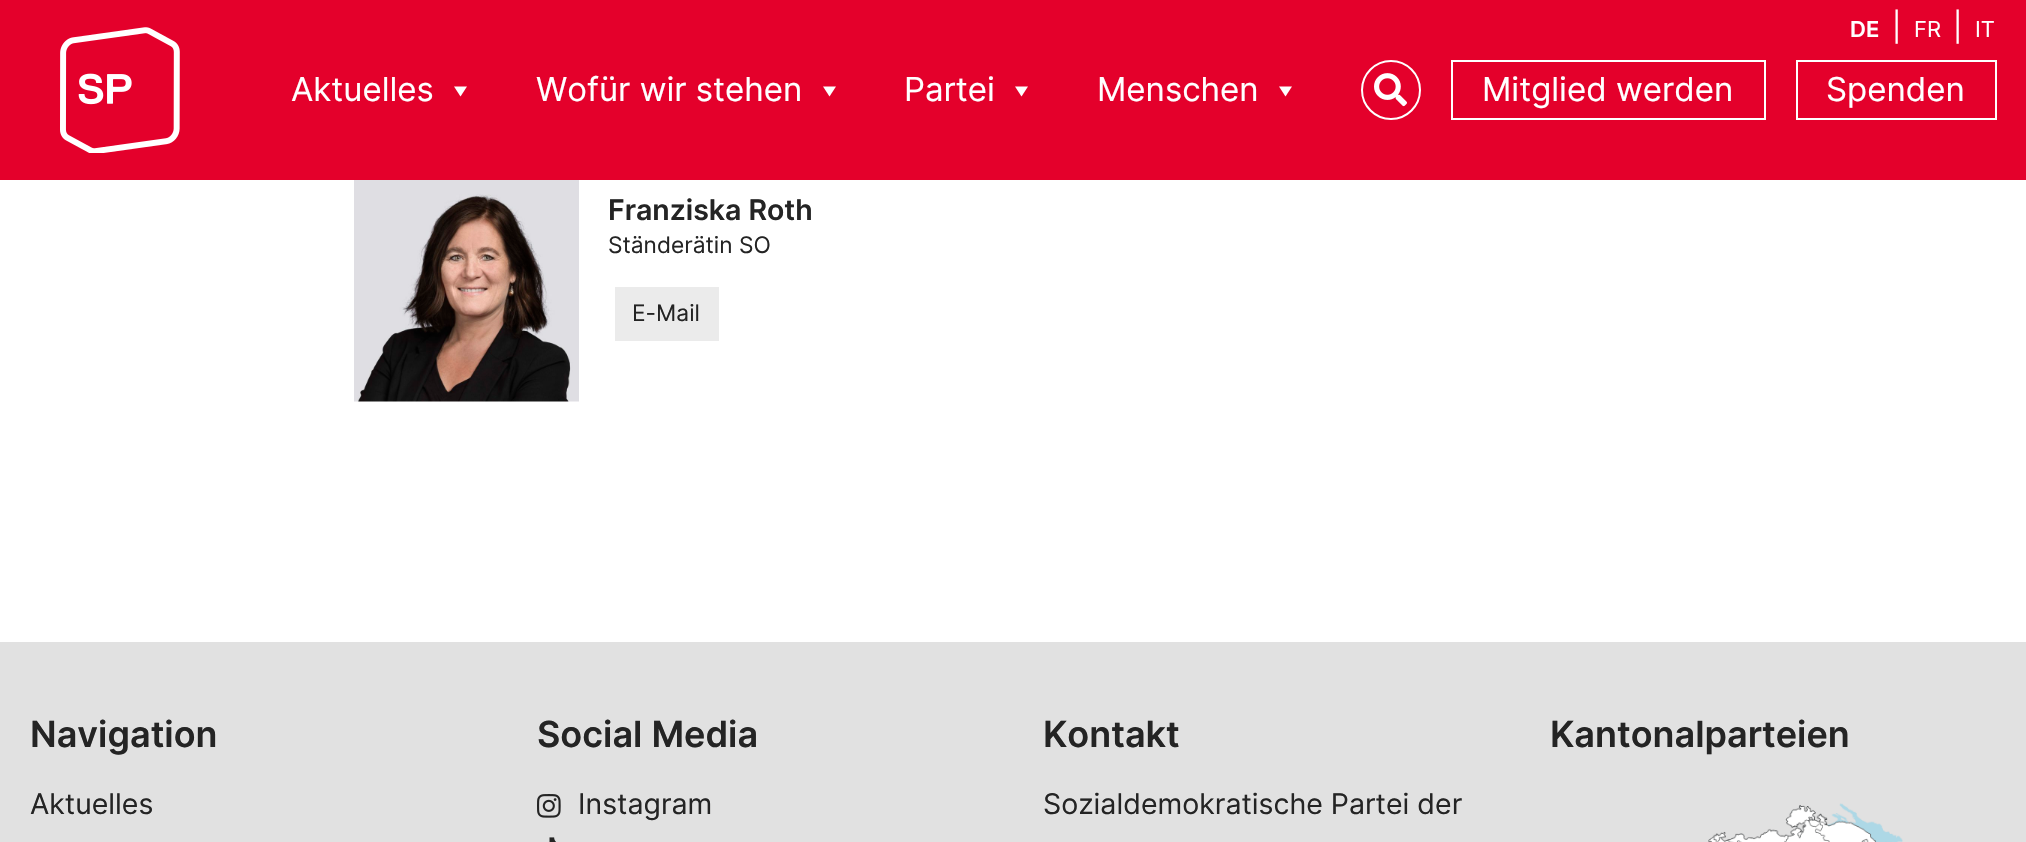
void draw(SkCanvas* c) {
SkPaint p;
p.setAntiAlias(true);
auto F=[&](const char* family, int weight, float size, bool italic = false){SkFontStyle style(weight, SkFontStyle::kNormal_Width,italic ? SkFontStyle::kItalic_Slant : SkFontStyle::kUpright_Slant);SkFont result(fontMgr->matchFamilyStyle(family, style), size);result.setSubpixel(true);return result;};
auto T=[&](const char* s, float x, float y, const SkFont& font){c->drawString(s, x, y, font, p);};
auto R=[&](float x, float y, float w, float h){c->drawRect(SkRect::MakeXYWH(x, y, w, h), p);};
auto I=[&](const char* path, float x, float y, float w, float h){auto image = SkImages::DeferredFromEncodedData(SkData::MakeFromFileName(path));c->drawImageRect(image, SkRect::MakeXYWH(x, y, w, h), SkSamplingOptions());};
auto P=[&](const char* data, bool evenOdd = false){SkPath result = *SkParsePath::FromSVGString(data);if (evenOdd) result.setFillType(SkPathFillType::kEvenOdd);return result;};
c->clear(0xffffffff);
p.setColor(0xffe4002b);
R(0,0,2026,180);
auto f1 = F("Inter",600,22);
p.setColor(0xffffffff);
T("DE",1850,37,f1);
auto f2 = F("Inter",400,28.5);
T("|",1892,37,f2);
auto f3 = F("Inter",400,22);
T("FR",1914,37,f3);
T("|",1953,37,f2);
T("IT",1975,37,f3);
I("1.png",60,27,120,126);
auto f4 = F("Inter",400,33);
T("Aktuelles",291,101,f4);
c->drawPath(P("M467 86.5l-6.5 10l-6.5-10z"),p);
T("Wofür wir stehen",536,101,f4);
c->drawPath(P("M836 86.5l-6.5 10l-6.5-10z"),p);
T("Partei",904,101,f4);
c->drawPath(P("M1028 86.5l-6.5 10l-6.5-10z"),p);
T("Menschen",1097,101,f4);
c->drawPath(P("M1292 86.5l-6.5 10l-6.5-10z"),p);
p.setStroke(true);
p.setStrokeWidth(2);
c->drawCircle(1391,90,29,p);
I("2.png",1374,73,33,34);
c->drawRect(SkRect::MakeXYWH(1452,61,313,58),p);
p.setStroke(false);
T("Mitglied werden",1482,101,f4);
p.setStroke(true);
c->drawRect(SkRect::MakeXYWH(1797,61,199,58),p);
p.setStroke(false);
T("Spenden",1826,101,f4);
I("3.png",354,180,225,222);
auto f5 = F("Inter",600,28.5);
p.setColor(0xff242424);
T("Franziska Roth",608,220,f5);
auto f6 = F("Inter",400,22.75);
T("Ständerätin SO",608,253,f6);
p.setColor(0xffebebeb);
R(615,287,104,54);
p.setColor(0xff242424);
T("E-Mail",632,321,f6);
p.setColor(0xffe1e1e1);
R(0,642,2026,200);
auto f7 = F("Inter",600,36);
p.setColor(0xff242424);
T("Navigation",30,747,f7);
T("Aktuelles",30,814,f2);
T("Social Media",537,747,f7);
I("4.png",537,794,24,24);
T("Instagram",578,814,f2);
I("5.png",549,837,7,5);
T("Kontakt",1043,747,f7);
T("Sozialdemokratische Partei der",1043,814,f2);
T("Kantonalparteien",1550,747,f7);
I("6.png",1708,803,195,39);
}
